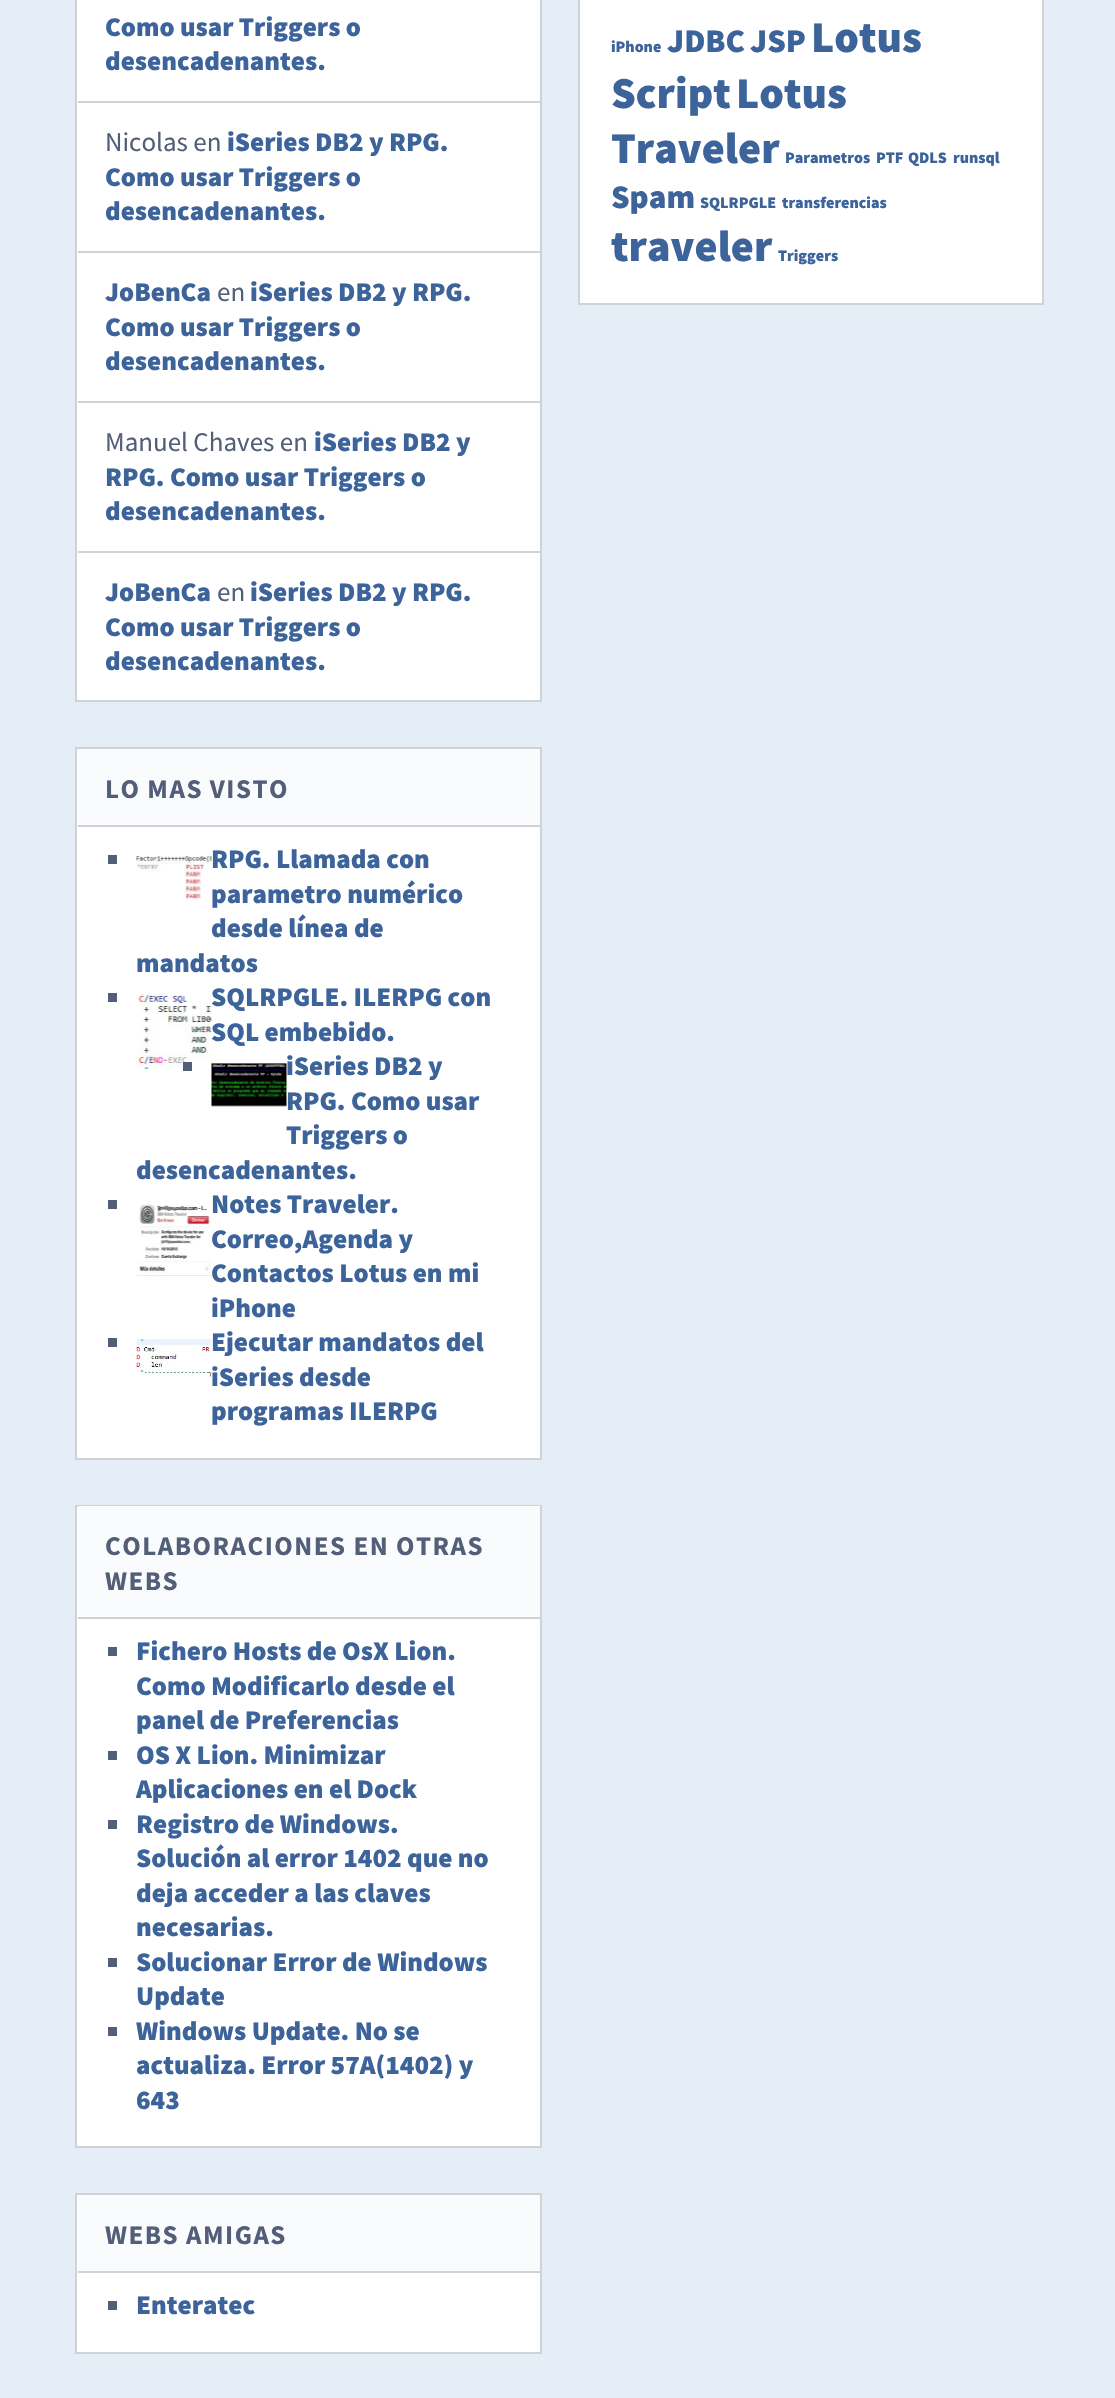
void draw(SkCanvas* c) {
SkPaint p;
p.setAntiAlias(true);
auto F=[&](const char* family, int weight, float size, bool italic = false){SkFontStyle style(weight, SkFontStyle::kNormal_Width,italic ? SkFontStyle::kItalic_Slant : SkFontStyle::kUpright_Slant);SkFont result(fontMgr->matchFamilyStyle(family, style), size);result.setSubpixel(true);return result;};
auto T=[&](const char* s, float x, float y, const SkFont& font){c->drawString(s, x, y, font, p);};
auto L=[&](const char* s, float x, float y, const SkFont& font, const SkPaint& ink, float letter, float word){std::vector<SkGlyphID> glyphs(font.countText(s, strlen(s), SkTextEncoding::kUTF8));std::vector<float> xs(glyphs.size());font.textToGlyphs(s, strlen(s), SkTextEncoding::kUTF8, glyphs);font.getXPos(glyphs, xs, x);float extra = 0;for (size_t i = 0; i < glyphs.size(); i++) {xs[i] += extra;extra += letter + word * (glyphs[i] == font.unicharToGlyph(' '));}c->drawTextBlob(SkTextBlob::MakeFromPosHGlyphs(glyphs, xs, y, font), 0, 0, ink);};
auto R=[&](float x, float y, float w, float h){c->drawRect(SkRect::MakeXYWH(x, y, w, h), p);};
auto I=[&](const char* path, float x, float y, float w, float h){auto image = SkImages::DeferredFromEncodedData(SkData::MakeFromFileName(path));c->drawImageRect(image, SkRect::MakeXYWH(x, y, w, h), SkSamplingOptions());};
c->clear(0xffe5eef6);
p.setColor(0xffffffff);
c->drawRect(SkRect::MakeXYWH(76,-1,465,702),p);
p.setStroke(true);
p.setStrokeWidth(2);
p.setColor(0xffcfd3d5);
c->drawRect(SkRect::MakeXYWH(76,-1,465,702),p);
p.setStroke(false);
R(78,101,462,2);
auto f1 = F("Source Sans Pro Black",900,27);
p.setColor(0xff3c639a);
T("Como usar Triggers o",105,36,f1);
T("desencadenantes.",105,70,f1);
p.setColor(0xffcfd3d5);
R(78,251,462,2);
auto f2 = F("Source Sans Pro",400,27);
p.setColor(0xff535e78);
T("Nicolas en",105,151,f2);
p.setColor(0xff3c639a);
T("iSeries DB2 y RPG.",227,151,f1);
T("Como usar Triggers o",105,186,f1);
T("desencadenantes.",105,220,f1);
p.setColor(0xffcfd3d5);
R(78,401,462,2);
p.setColor(0xff3c639a);
T("JoBenCa",105,301,f1);
p.setColor(0xff535e78);
T("en",217,301,f2);
p.setColor(0xff3c639a);
T("iSeries DB2 y RPG.",250,301,f1);
T("Como usar Triggers o",105,336,f1);
T("desencadenantes.",105,370,f1);
p.setColor(0xffcfd3d5);
R(78,551,462,2);
p.setColor(0xff535e78);
T("Manuel Chaves en",105,451,f2);
p.setColor(0xff3c639a);
T("iSeries DB2 y",314,451,f1);
T("RPG. Como usar Triggers o",105,486,f1);
T("desencadenantes.",105,520,f1);
T("JoBenCa",105,601,f1);
p.setColor(0xff535e78);
T("en",217,601,f2);
p.setColor(0xff3c639a);
T("iSeries DB2 y RPG.",250,601,f1);
T("Como usar Triggers o",105,636,f1);
T("desencadenantes.",105,670,f1);
p.setColor(0xffffffff);
c->drawRect(SkRect::MakeXYWH(76,748,465,711),p);
p.setStroke(true);
p.setColor(0xffcfd3d5);
c->drawRect(SkRect::MakeXYWH(76,748,465,711),p);
p.setStroke(false);
p.setColor(0xfff9fbfd);
R(78,749,462,76);
p.setColor(0xffcfd1d5);
R(78,825,462,2);
auto f3 = F("Source Sans Pro",700,27);
p.setColor(0xff535e78);
L("LO MAS VISTO",105,798,f3,p,1.5,0);
R(108,855,9,9);
I("1.png",136,856,76,46);
p.setColor(0xff3c639a);
T("RPG. Llamada con",211,868,f1);
T("parametro numérico",211,903,f1);
T("desde línea de",211,937,f1);
T("mandatos",136,972,f1);
p.setColor(0xff535e78);
R(108,993,9,9);
I("2.png",136,994,76,75);
p.setColor(0xff3c639a);
T("SQLRPGLE. ILERPG con",211,1006,f1);
T("SQL embebido.",211,1041,f1);
p.setColor(0xff535e78);
R(183,1062,9,9);
I("3.png",211,1063,76,44);
p.setColor(0xff3c639a);
T("iSeries DB2 y",286,1075,f1);
T("RPG. Como usar",286,1110,f1);
T("Triggers o",286,1144,f1);
T("desencadenantes.",136,1179,f1);
p.setColor(0xff535e78);
R(108,1200,9,9);
I("4.png",136,1204,76,72);
p.setColor(0xff3c639a);
T("Notes Traveler.",211,1213,f1);
T("Correo,Agenda y",211,1248,f1);
T("Contactos Lotus en mi",211,1282,f1);
T("iPhone",211,1317,f1);
p.setColor(0xff535e78);
R(108,1338,9,9);
I("5.png",136,1339,76,38);
p.setColor(0xff3c639a);
T("Ejecutar mandatos del",211,1351,f1);
T("iSeries desde",211,1386,f1);
T("programas ILERPG",211,1420,f1);
p.setColor(0xffffffff);
c->drawRect(SkRect::MakeXYWH(76,1506,465,641),p);
p.setStroke(true);
p.setColor(0xffcfd3d5);
c->drawRect(SkRect::MakeXYWH(76,1506,465,641),p);
p.setStroke(false);
p.setColor(0xfff9fbfd);
R(78,1506,462,111);
p.setColor(0xffcfd1d5);
R(78,1617,462,2);
p.setColor(0xff535e78);
L("COLABORACIONES EN OTRAS",105,1555,f3,p,1.5,0);
L("WEBS",105,1590,f3,p,1.5,0);
R(108,1647,9,9);
p.setColor(0xff3c639a);
T("Fichero Hosts de OsX Lion.",136,1660,f1);
T("Como Modificarlo desde el",136,1695,f1);
T("panel de Preferencias",136,1729,f1);
p.setColor(0xff535e78);
R(108,1751,9,9);
p.setColor(0xff3c639a);
T("OS X Lion. Minimizar",136,1764,f1);
T("Aplicaciones en el Dock",136,1798,f1);
p.setColor(0xff535e78);
R(108,1820,9,9);
p.setColor(0xff3c639a);
T("Registro de Windows.",136,1833,f1);
T("Solución al error 1402 que no",136,1867,f1);
T("deja acceder a las claves",136,1902,f1);
T("necesarias.",136,1936,f1);
p.setColor(0xff535e78);
R(108,1958,9,9);
p.setColor(0xff3c639a);
T("Solucionar Error de Windows",136,1971,f1);
T("Update",136,2005,f1);
p.setColor(0xff535e78);
R(108,2027,9,9);
p.setColor(0xff3c639a);
T("Windows Update. No se",136,2040,f1);
T("actualiza. Error 57A(1402) y",136,2074,f1);
T("643",136,2109,f1);
p.setColor(0xffffffff);
c->drawRect(SkRect::MakeXYWH(76,2194,465,159),p);
p.setStroke(true);
p.setColor(0xffcfd3d5);
c->drawRect(SkRect::MakeXYWH(76,2194,465,159),p);
p.setStroke(false);
p.setColor(0xfff9fbfd);
R(78,2195,462,76);
p.setColor(0xffcfd1d5);
R(78,2271,462,2);
p.setColor(0xff535e78);
L("WEBS AMIGAS",105,2244,f3,p,1.5,0);
R(108,2301,9,9);
p.setColor(0xff3c639a);
T("Enteratec",136,2314,f1);
p.setColor(0xffffffff);
c->drawRect(SkRect::MakeXYWH(579,-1,464,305),p);
p.setStroke(true);
p.setColor(0xffcfd3d5);
c->drawRect(SkRect::MakeXYWH(579,-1,464,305),p);
auto f4 = F("Source Sans Pro Black",900,16);
p.setStroke(false);
p.setColor(0xff3c639a);
T("iPhone",611,52,f4);
auto f5 = F("Source Sans Pro Black",900,33);
T("JDBC",667,52,f5);
T("JSP",750,52,f5);
auto f6 = F("Source Sans Pro Black",900,44);
T("Lotus",811,52,f6);
T("Script",611,108,f6);
T("Lotus",736,108,f6);
T("Traveler",611,163,f6);
T("Parametros",785,163,f4);
T("PTF",876,163,f4);
T("QDLS",908,163,f4);
T("runsql",953,163,f4);
T("Spam",611,208,f5);
T("SQLRPGLE",700,208,f4);
T("transferencias",782,208,f4);
T("traveler",611,261,f6);
T("Triggers",778,261,f4);
}
